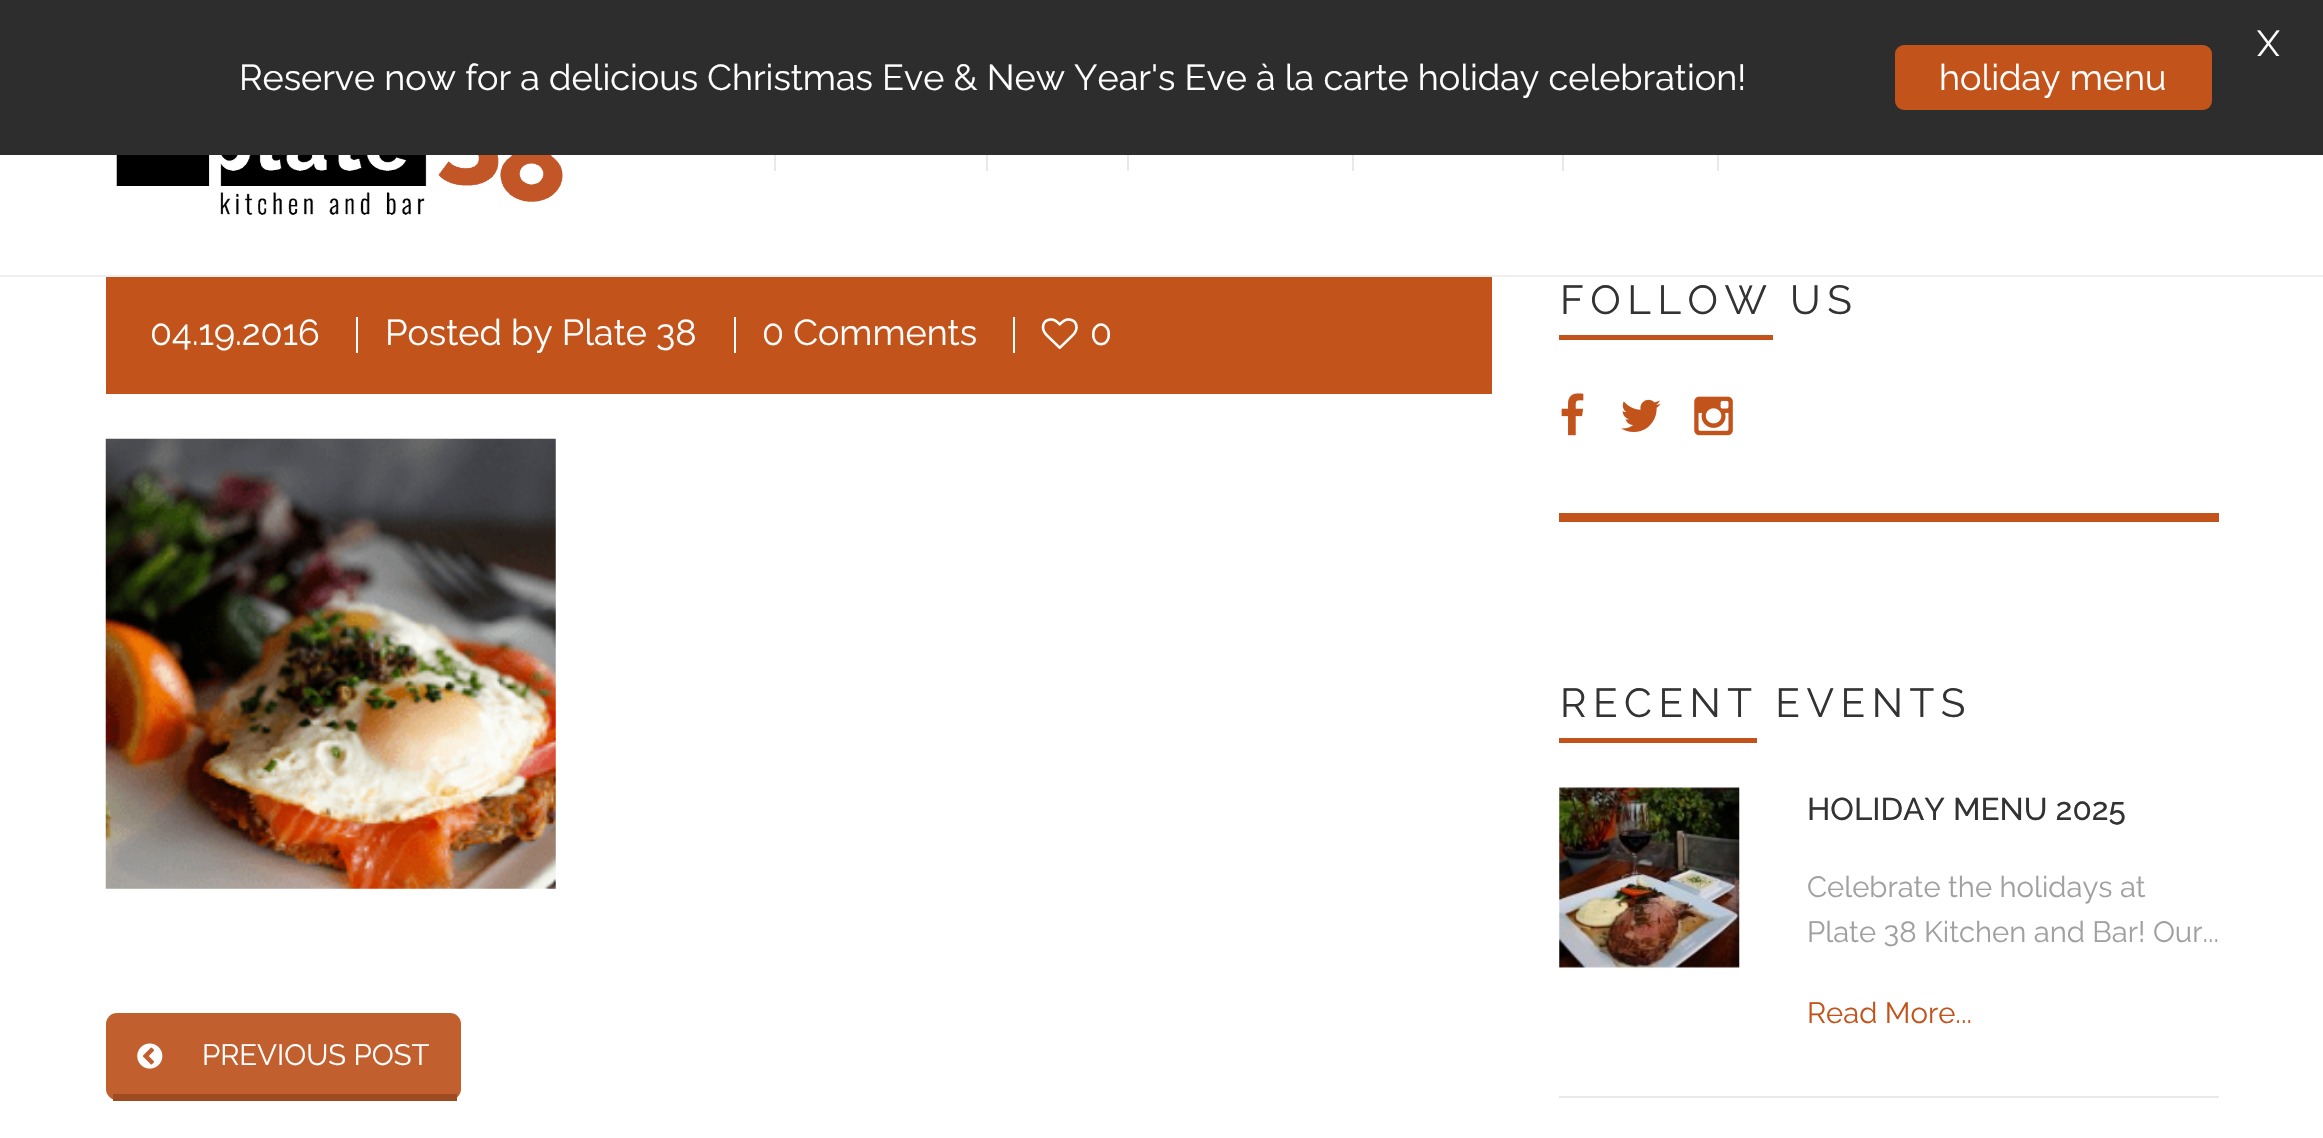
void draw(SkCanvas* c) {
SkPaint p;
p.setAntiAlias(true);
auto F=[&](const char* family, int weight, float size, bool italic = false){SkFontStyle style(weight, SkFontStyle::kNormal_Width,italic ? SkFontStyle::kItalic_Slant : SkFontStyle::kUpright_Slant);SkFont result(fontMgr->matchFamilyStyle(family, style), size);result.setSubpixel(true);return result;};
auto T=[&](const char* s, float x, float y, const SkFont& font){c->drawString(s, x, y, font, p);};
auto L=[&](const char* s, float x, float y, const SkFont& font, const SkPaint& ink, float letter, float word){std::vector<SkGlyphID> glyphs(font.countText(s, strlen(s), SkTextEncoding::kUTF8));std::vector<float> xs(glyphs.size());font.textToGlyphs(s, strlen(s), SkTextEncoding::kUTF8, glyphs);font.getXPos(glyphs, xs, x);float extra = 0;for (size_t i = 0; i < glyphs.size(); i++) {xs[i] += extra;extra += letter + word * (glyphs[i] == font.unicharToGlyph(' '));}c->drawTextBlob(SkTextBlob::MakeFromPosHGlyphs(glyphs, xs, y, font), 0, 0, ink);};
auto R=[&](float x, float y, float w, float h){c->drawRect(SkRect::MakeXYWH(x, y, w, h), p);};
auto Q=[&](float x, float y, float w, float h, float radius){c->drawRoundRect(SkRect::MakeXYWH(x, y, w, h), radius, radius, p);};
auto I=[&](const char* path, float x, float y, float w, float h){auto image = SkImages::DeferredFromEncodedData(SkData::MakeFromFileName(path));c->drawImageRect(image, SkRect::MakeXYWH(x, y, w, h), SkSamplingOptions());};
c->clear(0xffffffff);
p.setColor(0xff2d2d2d);
R(0,0,2323,155);
auto f1 = F("Raleway",400,36);
p.setColor(0xffffffff);
T("X",2257,56,f1);
T("Reserve now for a delicious Christmas Eve & New Year's Eve à la carte holiday celebration!",239,90,f1);
p.setColor(0xffc1531b);
Q(1895,45,317,65,9);
p.setColor(0xffffffff);
T("holiday menu",1939,90,f1);
p.setColor(0xffefefef);
R(0,275,2323,2);
I("1.png",116,155,447,60);
p.setColor(0xffe9e9e9);
R(774,155,2,16);
R(986,155,2,16);
R(1127,155,2,16);
R(1352,155,2,16);
R(1562,155,2,16);
R(1717,155,2,16);
p.setColor(0xffc1531b);
R(106,277,1386,117);
p.setColor(0xffffffff);
T("04.19.2016",150,345,f1);
R(356,317,2,36);
T("Posted by Plate 38",385,345,f1);
R(734,317,2,36);
T("0 Comments",762,345,f1);
R(1013,317,2,36);
I("2.png",1041,318,37,32);
T("0",1090,345,f1);
I("3.png",105,438,451,451);
p.setColor(0xffc15f2e);
Q(106,1013,355,87,11);
p.setColor(0xff9e4b22);
R(113,1094,344,7);
I("4.png",137,1043,26,26);
auto f2 = F("Raleway",400,29.25);
p.setColor(0xffffffff);
T("PREVIOUS POST",202,1065,f2);
p.setColor(0xffc1531b);
R(1559,513,660,9);
R(1559,335,214,5);
auto f3 = F("Raleway",400,40.5);
p.setColor(0xff333333);
L("FOLLOW US",1560,314,f3,p,6.5,0);
I("5.png",1561,393,23,43);
I("6.png",1621,399,40,33);
I("7.png",1694,396,39,40);
p.setColor(0xffc1531b);
R(1559,738,198,5);
p.setColor(0xff333333);
L("RECENT EVENTS",1560,717,f3,p,6.5,0);
p.setColor(0xffe9e9e9);
R(1559,1096,660,2);
I("8.png",1559,787,181,181);
auto f4 = F("Raleway",500,31.5);
p.setColor(0xff333333);
T("HOLIDAY MENU 2025",1807,820,f4);
p.setColor(0xffa0a0a0);
T("Celebrate the holidays at",1807,897,f2);
T("Plate 38 Kitchen and Bar! Our...",1807,942,f2);
p.setColor(0xffc1531b);
T("Read More...",1807,1023,f2);
}
